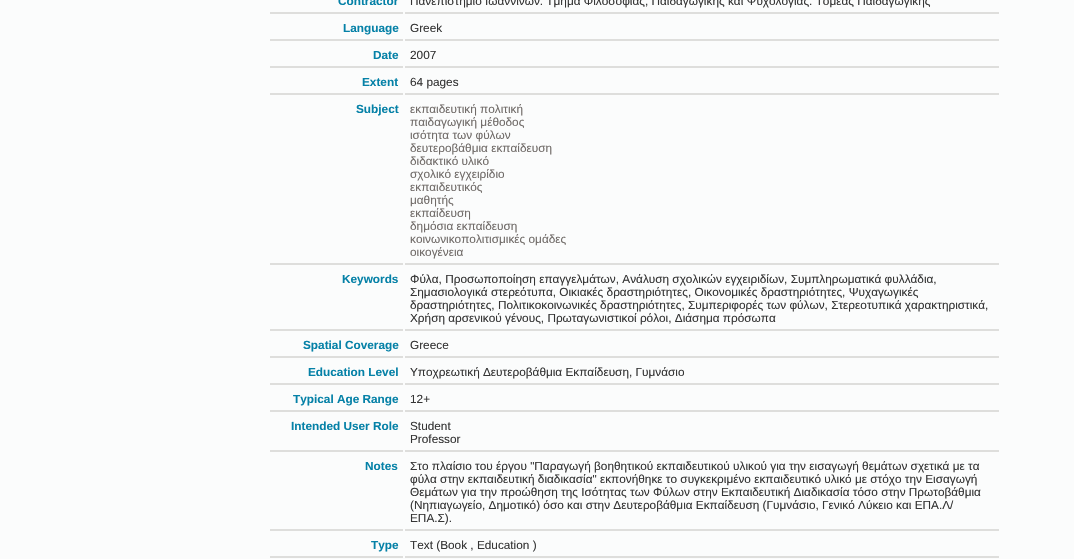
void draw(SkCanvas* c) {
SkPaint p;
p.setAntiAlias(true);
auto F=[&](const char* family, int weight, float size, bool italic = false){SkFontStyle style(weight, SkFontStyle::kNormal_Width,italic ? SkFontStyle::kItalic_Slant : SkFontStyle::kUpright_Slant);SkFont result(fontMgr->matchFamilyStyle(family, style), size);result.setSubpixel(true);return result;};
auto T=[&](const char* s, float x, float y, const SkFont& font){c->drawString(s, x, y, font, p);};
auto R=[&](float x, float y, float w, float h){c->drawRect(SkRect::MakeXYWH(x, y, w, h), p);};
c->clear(0xffffffff);
p.setColor(0xfffbfcfc);
R(0,0,1074,559);
p.setColor(0xffdededc);
R(270,12,133,2);
auto f1 = F("Liberation Sans",700,11.8);
p.setColor(0xff0581a7);
T("Contractor",338,5,f1);
p.setColor(0xffdededc);
R(405,12,594,2);
auto f2 = F("Liberation Sans",400,11.8);
p.setColor(0xff353535);
T("Πανεπιστήμιο Ιωαννίνων. Τμήμα Φιλοσοφίας, Παιδαγωγικής και Ψυχολογίας. Τομέας Παιδαγωγικής",410,5,f2);
p.setColor(0xffdededc);
R(270,39,133,2);
p.setColor(0xff0581a7);
T("Language",343,32,f1);
p.setColor(0xffdededc);
R(405,39,594,2);
p.setColor(0xff353535);
T("Greek",410,32,f2);
p.setColor(0xffdededc);
R(270,66,133,2);
p.setColor(0xff0581a7);
T("Date",373,59,f1);
p.setColor(0xffdededc);
R(405,66,594,2);
p.setColor(0xff353535);
T("2007",410,59,f2);
p.setColor(0xffdededc);
R(270,93,133,2);
p.setColor(0xff0581a7);
T("Extent",362,86,f1);
p.setColor(0xffdededc);
R(405,93,594,2);
p.setColor(0xff353535);
T("64 pages",410,86,f2);
p.setColor(0xffdededc);
R(270,263,133,2);
p.setColor(0xff0581a7);
T("Subject",356,113,f1);
p.setColor(0xffdededc);
R(405,263,594,2);
p.setColor(0xff706b68);
T("εκπαιδευτική πολιτική",410,113,f2);
T("παιδαγωγική μέθοδος",410,126,f2);
T("ισότητα των φύλων",410,139,f2);
T("δευτεροβάθμια εκπαίδευση",410,152,f2);
T("διδακτικό υλικό",410,165,f2);
T("σχολικό εγχειρίδιο",410,178,f2);
T("εκπαιδευτικός",410,191,f2);
T("μαθητής",410,204,f2);
T("εκπαίδευση",410,217,f2);
T("δημόσια εκπαίδευση",410,230,f2);
T("κοινωνικοπολιτισμικές ομάδες",410,243,f2);
T("οικογένεια",410,256,f2);
p.setColor(0xffdededc);
R(270,329,133,2);
p.setColor(0xff0581a7);
T("Keywords",342,283,f1);
p.setColor(0xffdededc);
R(405,329,594,2);
p.setColor(0xff353535);
T("Φύλα, Προσωποποίηση επαγγελμάτων, Ανάλυση σχολικών εγχειριδίων, Συμπληρωματικά φυλλάδια,",410,283,f2);
T("Σημασιολογικά στερεότυπα, Οικιακές δραστηριότητες, Οικονομικές δραστηριότητες, Ψυχαγωγικές",410,296,f2);
T("δραστηριότητες, Πολιτικοκοινωνικές δραστηριότητες, Συμπεριφορές των φύλων, Στερεοτυπικά χαρακτηριστικά,",410,309,f2);
T("Χρήση αρσενικού γένους, Πρωταγωνιστικοί ρόλοι, Διάσημα πρόσωπα",410,322,f2);
p.setColor(0xffdededc);
R(270,356,133,2);
p.setColor(0xff0581a7);
T("Spatial Coverage",303,349,f1);
p.setColor(0xffdededc);
R(405,356,594,2);
p.setColor(0xff353535);
T("Greece",410,349,f2);
p.setColor(0xffdededc);
R(270,383,133,2);
p.setColor(0xff0581a7);
T("Education Level",308,376,f1);
p.setColor(0xffdededc);
R(405,383,594,2);
p.setColor(0xff353535);
T("Υποχρεωτική Δευτεροβάθμια Εκπαίδευση, Γυμνάσιο",410,376,f2);
p.setColor(0xffdededc);
R(270,410,133,2);
p.setColor(0xff0581a7);
T("Typical Age Range",293,403,f1);
p.setColor(0xffdededc);
R(405,410,594,2);
p.setColor(0xff353535);
T("12+",410,403,f2);
p.setColor(0xffdededc);
R(270,450,133,2);
p.setColor(0xff0581a7);
T("Intended User Role",291,430,f1);
p.setColor(0xffdededc);
R(405,450,594,2);
p.setColor(0xff353535);
T("Student",410,430,f2);
T("Professor",410,443,f2);
p.setColor(0xffdededc);
R(270,529,133,2);
p.setColor(0xff0581a7);
T("Notes",365,470,f1);
p.setColor(0xffdededc);
R(405,529,594,2);
p.setColor(0xff353535);
T("Στο πλαίσιο του έργου \"Παραγωγή βοηθητικού εκπαιδευτικού υλικού για την εισαγωγή θεμάτων σχετικά με τα",410,470,f2);
T("φύλα στην εκπαιδευτική διαδικασία\" εκπονήθηκε το συγκεκριμένο εκπαιδευτικό υλικό με στόχο την Εισαγωγή",410,483,f2);
T("Θεμάτων για την προώθηση της Ισότητας των Φύλων στην Εκπαιδευτική Διαδικασία τόσο στην Πρωτοβάθμια",410,496,f2);
T("(Νηπιαγωγείο, Δημοτικό) όσο και στην Δευτεροβάθμια Εκπαίδευση (Γυμνάσιο, Γενικό Λύκειο και ΕΠΑ.Λ/",410,509,f2);
T("ΕΠΑ.Σ).",410,522,f2);
p.setColor(0xffdededc);
R(270,556,133,2);
p.setColor(0xff0581a7);
T("Type",371,549,f1);
p.setColor(0xffdededc);
R(405,556,594,2);
p.setColor(0xff353535);
T("Text (Book , Education )",410,549,f2);
}
